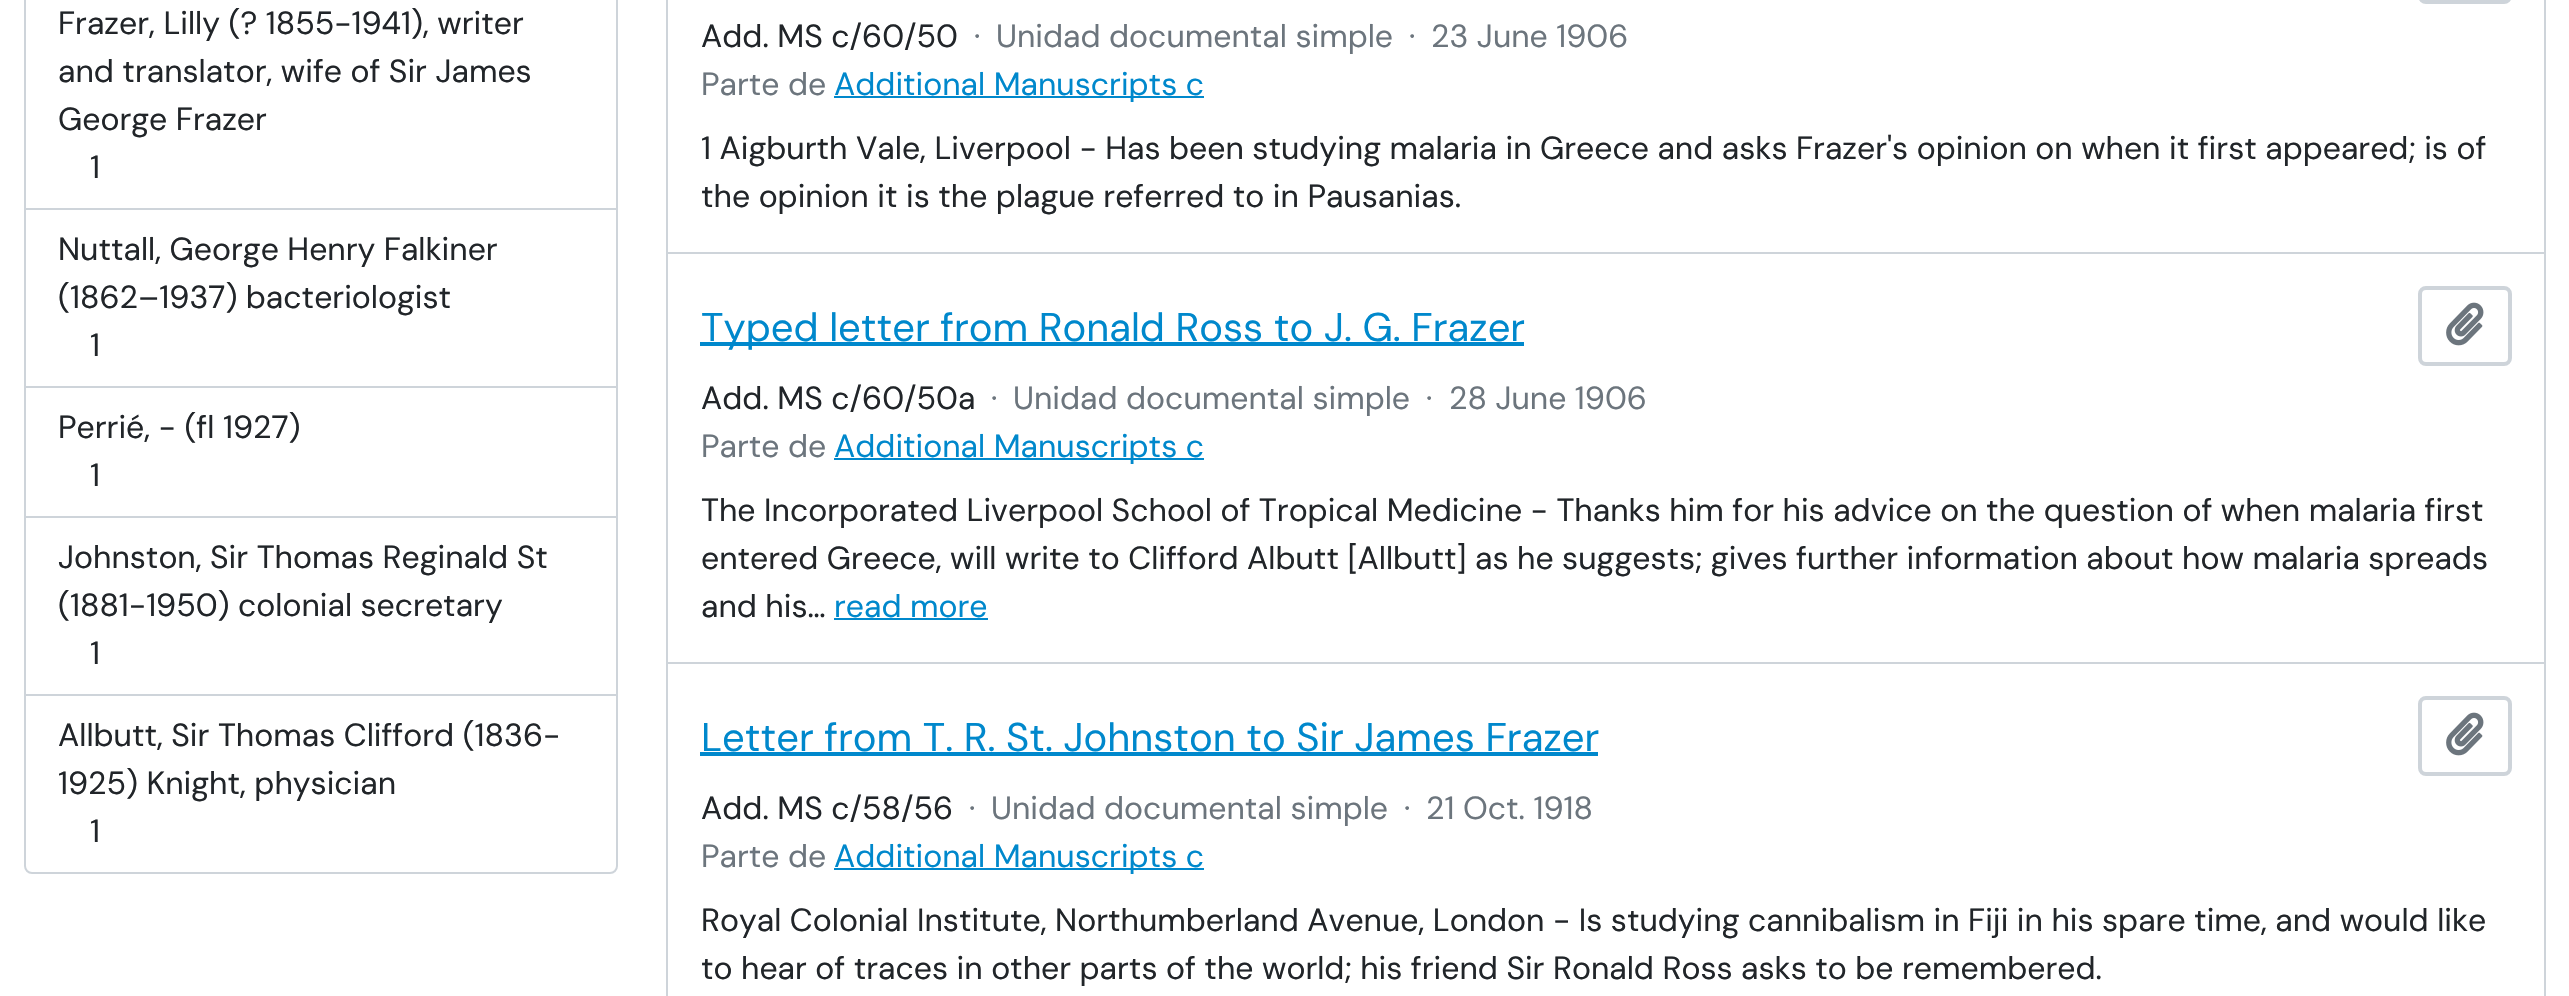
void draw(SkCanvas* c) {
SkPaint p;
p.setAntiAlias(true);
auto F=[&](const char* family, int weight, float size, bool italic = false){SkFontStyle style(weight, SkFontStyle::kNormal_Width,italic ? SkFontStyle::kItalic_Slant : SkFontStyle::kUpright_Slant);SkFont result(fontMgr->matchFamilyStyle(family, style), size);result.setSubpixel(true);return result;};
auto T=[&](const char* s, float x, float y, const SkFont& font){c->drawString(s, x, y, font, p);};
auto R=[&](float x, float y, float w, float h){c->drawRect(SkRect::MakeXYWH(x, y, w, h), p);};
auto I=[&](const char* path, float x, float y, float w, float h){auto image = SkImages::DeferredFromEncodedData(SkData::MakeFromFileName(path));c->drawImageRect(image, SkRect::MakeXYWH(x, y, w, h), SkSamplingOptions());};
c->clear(0xffffffff);
p.setStroke(true);
p.setStrokeWidth(2);
p.setColor(0xffced4da);
c->drawRoundRect(SkRect::MakeXYWH(25,-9,592,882),7,7,p);
p.setStroke(false);
R(26,208,590,2);
auto f1 = F("DM Sans",400,32);
p.setColor(0xff212529);
T("Frazer, Lilly (? 1855-1941), writer",58,34,f1);
T("and translator, wife of Sir James",58,82,f1);
T("George Frazer",58,130,f1);
T("1",90,178,f1);
p.setColor(0xffced4da);
R(26,386,590,2);
p.setColor(0xff212529);
T("Nuttall, George Henry Falkiner",58,260,f1);
T("(1862–1937) bacteriologist",58,308,f1);
T("1",90,356,f1);
p.setColor(0xffced4da);
R(26,516,590,2);
p.setColor(0xff212529);
T("Perrié, - (fl 1927)",58,438,f1);
T("1",90,486,f1);
p.setColor(0xffced4da);
R(26,694,590,2);
p.setColor(0xff212529);
T("Johnston, Sir Thomas Reginald St",58,568,f1);
T("(1881-1950) colonial secretary",58,616,f1);
T("1",90,664,f1);
T("Allbutt, Sir Thomas Clifford (1836-",58,746,f1);
T("1925) Knight, physician",58,794,f1);
T("1",90,842,f1);
p.setStroke(true);
p.setColor(0xffced4da);
c->drawRect(SkRect::MakeXYWH(667,-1,1878,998),p);
p.setStroke(false);
R(668,252,1876,2);
p.setStroke(true);
p.setStrokeWidth(4);
c->drawRoundRect(SkRect::MakeXYWH(2420,-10,90,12),6,6,p);
p.setStroke(false);
p.setColor(0xff212529);
T("Add. MS c/60/50",701,47,f1);
p.setColor(0xff6c757d);
T("·",974,47,f1);
T("Unidad documental simple",996,47,f1);
T("·",1409,47,f1);
T("23 June 1906",1431,47,f1);
T("Parte de",701,95,f1);
p.setColor(0xff0088cc);
R(834,96,370,2);
T("Additional Manuscripts c",834,95,f1);
p.setColor(0xff212529);
T("1 Aigburth Vale, Liverpool - Has been studying malaria in Greece and asks Frazer's opinion on when it first appeared; is of",701,159,f1);
T("the opinion it is the plague referred to in Pausanias.",701,207,f1);
p.setColor(0xffced4da);
R(668,662,1876,2);
p.setColor(0xff0088cc);
R(700,342,824,4);
auto f2 = F("DM Sans",400,40);
T("Typed letter from Ronald Ross to J. G. Frazer",701,341,f2);
p.setStroke(true);
p.setColor(0xffced4da);
c->drawRoundRect(SkRect::MakeXYWH(2420,288,90,76),6,6,p);
I("1.png",2446,302,38,44);
p.setStroke(false);
p.setColor(0xff212529);
T("Add. MS c/60/50a",701,409,f1);
p.setColor(0xff6c757d);
T("·",991,409,f1);
T("Unidad documental simple",1013,409,f1);
T("·",1426,409,f1);
T("28 June 1906",1449,409,f1);
T("Parte de",701,457,f1);
p.setColor(0xff0088cc);
R(834,458,370,2);
T("Additional Manuscripts c",834,457,f1);
p.setColor(0xff212529);
T("The Incorporated Liverpool School of Tropical Medicine - Thanks him for his advice on the question of when malaria first",701,521,f1);
T("entered Greece, will write to Clifford Albutt [Allbutt] as he suggests; gives further information about how malaria spreads",701,569,f1);
T("and his…",701,617,f1);
p.setColor(0xff0088cc);
T("read more",834,617,f1);
R(834,618,154,2);
T("Letter from T. R. St. Johnston to Sir James Frazer",701,751,f2);
R(700,752,898,4);
p.setStroke(true);
p.setColor(0xffced4da);
c->drawRoundRect(SkRect::MakeXYWH(2420,698,90,76),6,6,p);
I("1.png",2446,712,38,44);
p.setStroke(false);
p.setColor(0xff212529);
T("Add. MS c/58/56",701,819,f1);
p.setColor(0xff6c757d);
T("·",969,819,f1);
T("Unidad documental simple",991,819,f1);
T("·",1404,819,f1);
T("21 Oct. 1918",1426,819,f1);
T("Parte de",701,867,f1);
p.setColor(0xff0088cc);
R(834,868,370,2);
T("Additional Manuscripts c",834,867,f1);
p.setColor(0xff212529);
T("Royal Colonial Institute, Northumberland Avenue, London - Is studying cannibalism in Fiji in his spare time, and would like",701,931,f1);
T("to hear of traces in other parts of the world; his friend Sir Ronald Ross asks to be remembered.",701,979,f1);
}
